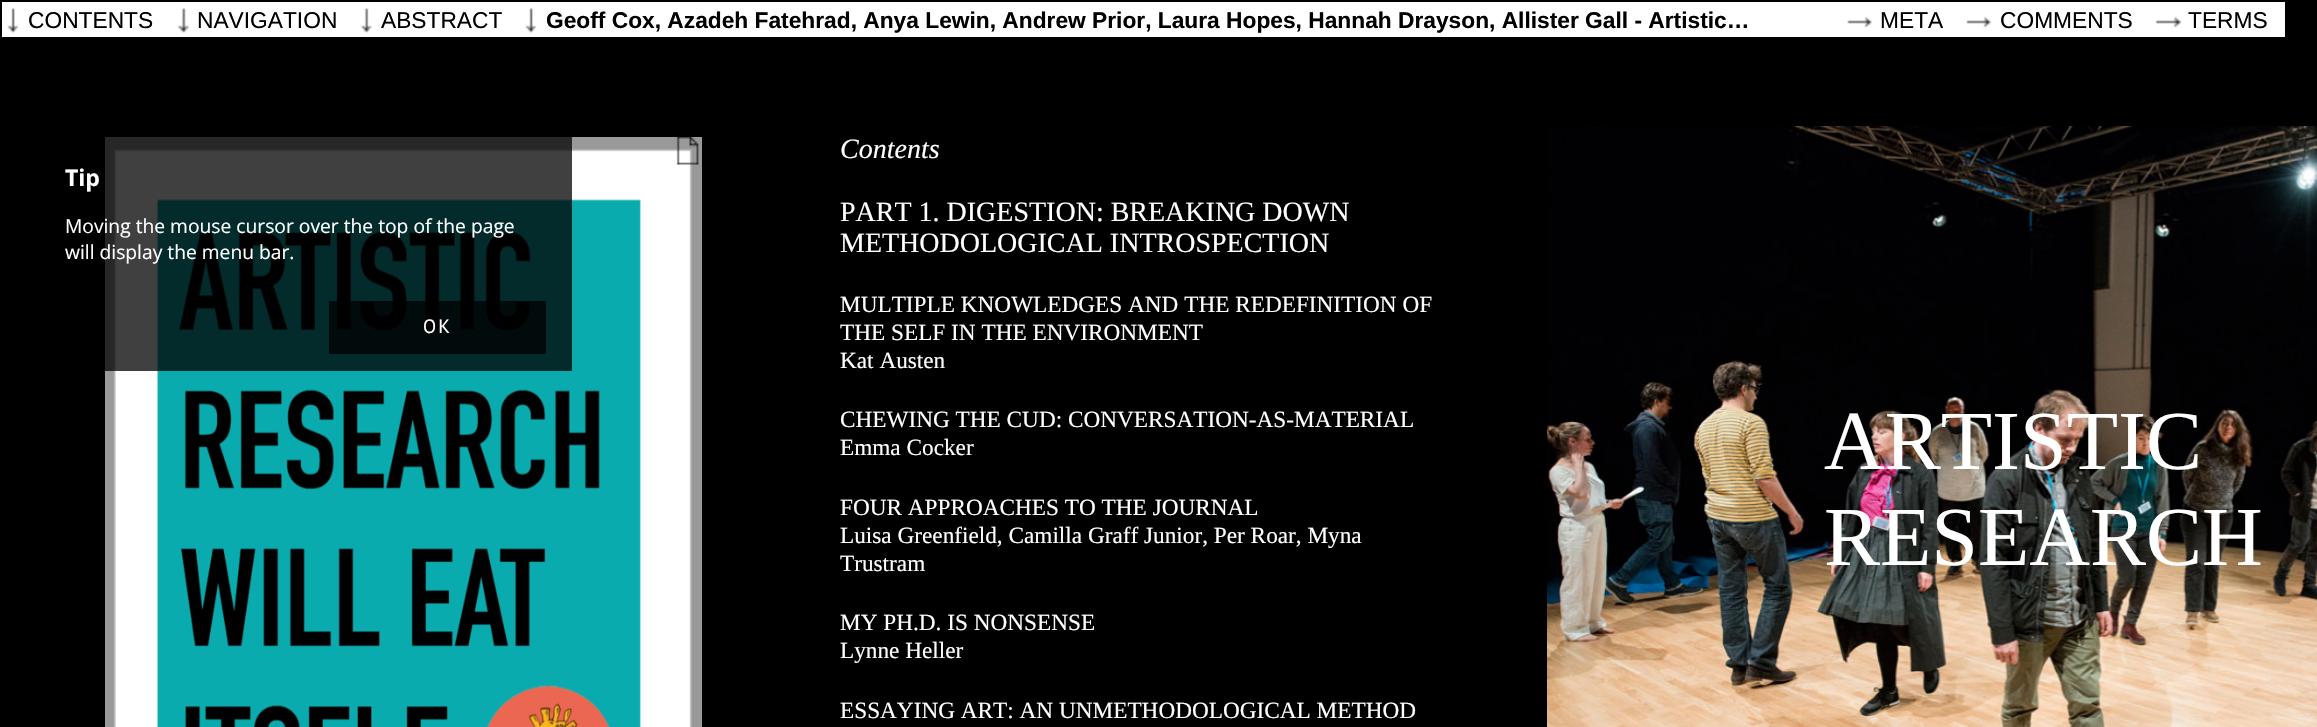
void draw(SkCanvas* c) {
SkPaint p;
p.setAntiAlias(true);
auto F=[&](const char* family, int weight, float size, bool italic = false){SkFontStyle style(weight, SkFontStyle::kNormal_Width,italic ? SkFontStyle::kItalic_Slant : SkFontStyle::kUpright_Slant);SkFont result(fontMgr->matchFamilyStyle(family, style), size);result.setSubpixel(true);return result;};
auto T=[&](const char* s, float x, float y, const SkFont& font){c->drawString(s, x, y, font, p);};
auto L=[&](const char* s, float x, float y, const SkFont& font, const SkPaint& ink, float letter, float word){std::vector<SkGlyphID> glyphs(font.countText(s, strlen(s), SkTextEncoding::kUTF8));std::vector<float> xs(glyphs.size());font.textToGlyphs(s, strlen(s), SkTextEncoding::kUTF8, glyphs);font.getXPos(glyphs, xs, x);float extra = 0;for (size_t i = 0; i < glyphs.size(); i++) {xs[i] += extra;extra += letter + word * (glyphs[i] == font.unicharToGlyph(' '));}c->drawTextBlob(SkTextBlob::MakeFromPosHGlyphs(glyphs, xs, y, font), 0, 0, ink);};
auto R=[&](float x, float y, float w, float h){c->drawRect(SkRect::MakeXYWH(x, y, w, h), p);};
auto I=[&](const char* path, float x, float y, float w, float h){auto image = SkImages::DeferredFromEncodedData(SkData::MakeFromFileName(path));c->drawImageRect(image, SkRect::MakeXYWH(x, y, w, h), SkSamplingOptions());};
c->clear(0xff000000);
p.setColor(0xffffffff);
R(2,2,2283,35);
I("1.png",7,7,12,26);
auto f1 = F("Liberation Sans",400,22.75);
p.setColor(0xff000000);
T("CONTENTS",28,28,f1);
I("2.png",177,7,12,26);
T("NAVIGATION",197,28,f1);
I("3.png",360,7,12,26);
T("ABSTRACT",381,28,f1);
I("1.png",525,7,12,26);
auto f2 = F("Liberation Sans",700,22.75);
T("Geoff Cox, Azadeh Fatehrad, Anya Lewin, Andrew Prior, Laura Hopes, Hannah Drayson, Allister Gall - Artistic…",546,28,f2);
I("4.png",1847,16,25,12);
T("META",1880,28,f1);
I("4.png",1966,16,25,12);
T("COMMENTS",2000,28,f1);
I("5.png",2155,16,27,12);
T("TERMS",2188,28,f1);
I("6.png",105,137,597,590);
p.setColor(0xbf000000);
R(105,137,467,234);
auto f3 = F("Open Sans",700,23);
p.setColor(0xffffffff);
T("Tip",65,186,f3);
auto f4 = F("Open Sans",400,19.25);
T("Moving the mouse cursor over the top of the page",65,233,f4);
T("will display the menu bar.",65,259,f4);
p.setColor(0xbf000000);
R(329,301,217,53);
auto f5 = F("PT Sans",400,19.25);
p.setColor(0xffffffff);
L("OK",423,333,f5,p,2,0);
I("7.png",676,137,23,28);
auto f6 = F("Liberation Serif",400,28,true);
T("Contents",840,158,f6);
auto f7 = F("Liberation Serif",400,28);
T("PART 1. DIGESTION: BREAKING DOWN",840,221,f7);
T("METHODOLOGICAL INTROSPECTION",840,252,f7);
auto f8 = F("Liberation Serif",400,23.25);
T("MULTIPLE KNOWLEDGES AND THE REDEFINITION OF",840,312,f8);
T("THE SELF IN THE ENVIRONMENT",840,340,f8);
T("Kat Austen",840,368,f8);
T("CHEWING THE CUD: CONVERSATION-AS-MATERIAL",840,427,f8);
T("Emma Cocker",840,455,f8);
T("FOUR APPROACHES TO THE JOURNAL",840,515,f8);
T("Luisa Greenfield, Camilla Graff Junior, Per Roar, Myna",840,543,f8);
T("Trustram",840,571,f8);
T("MY PH.D. IS NONSENSE",840,630,f8);
T("Lynne Heller",840,658,f8);
T("ESSAYING ART: AN UNMETHODOLOGICAL METHOD",840,718,f8);
I("8.png",1547,126,770,601);
auto f9 = F("Liberation Serif",400,84);
T("ARTISTIC",1824,469,f9);
T("RESEARCH",1824,565,f9);
}
